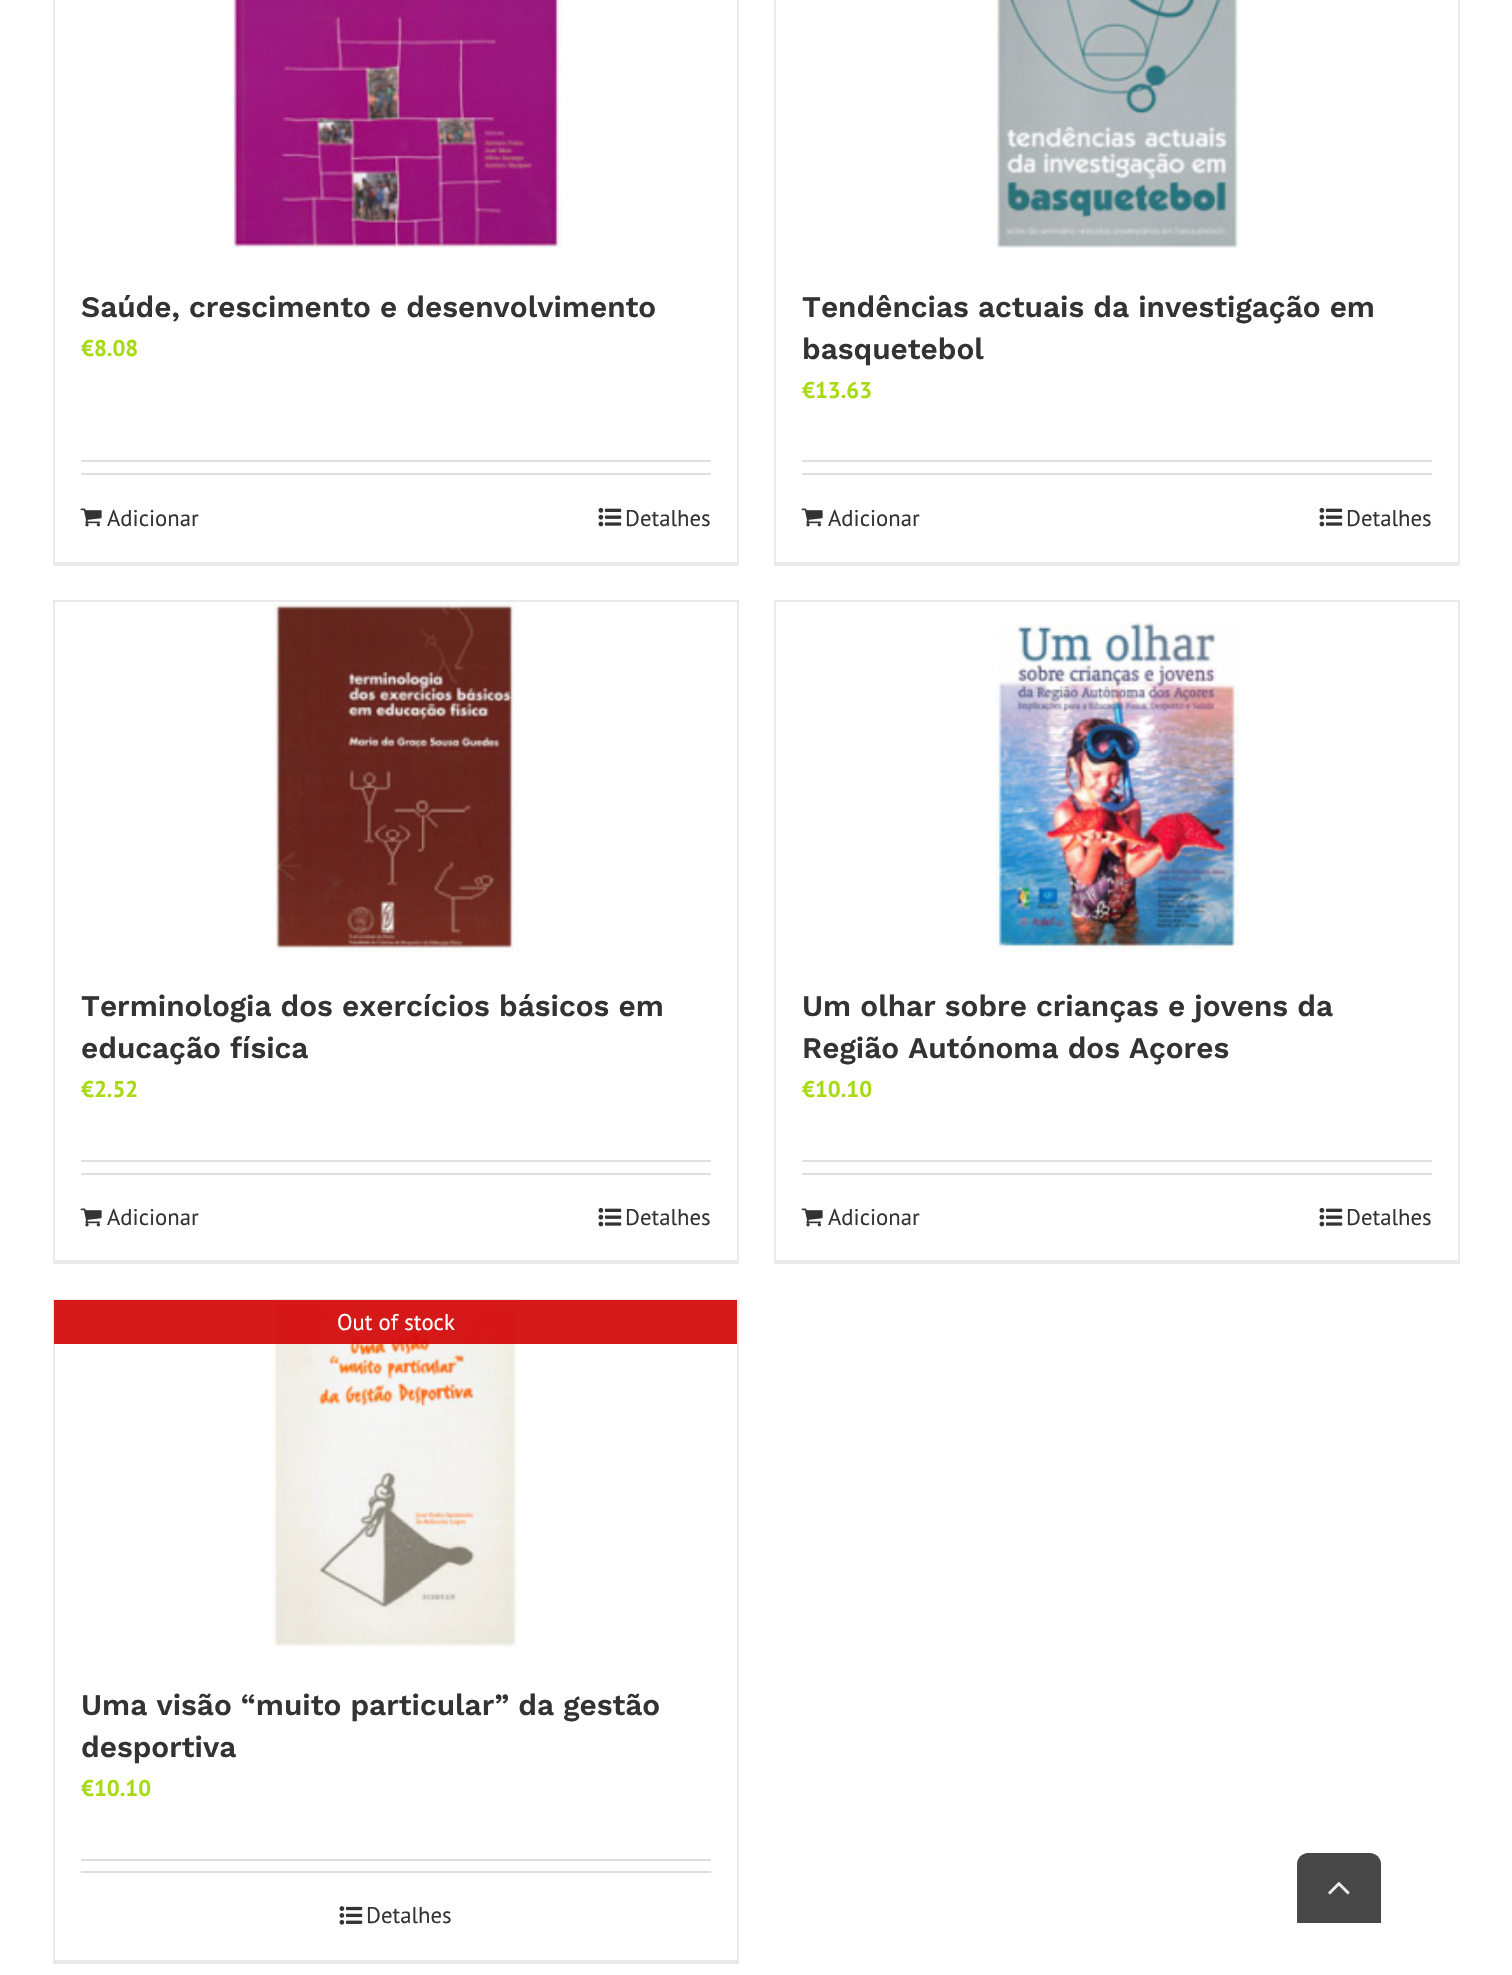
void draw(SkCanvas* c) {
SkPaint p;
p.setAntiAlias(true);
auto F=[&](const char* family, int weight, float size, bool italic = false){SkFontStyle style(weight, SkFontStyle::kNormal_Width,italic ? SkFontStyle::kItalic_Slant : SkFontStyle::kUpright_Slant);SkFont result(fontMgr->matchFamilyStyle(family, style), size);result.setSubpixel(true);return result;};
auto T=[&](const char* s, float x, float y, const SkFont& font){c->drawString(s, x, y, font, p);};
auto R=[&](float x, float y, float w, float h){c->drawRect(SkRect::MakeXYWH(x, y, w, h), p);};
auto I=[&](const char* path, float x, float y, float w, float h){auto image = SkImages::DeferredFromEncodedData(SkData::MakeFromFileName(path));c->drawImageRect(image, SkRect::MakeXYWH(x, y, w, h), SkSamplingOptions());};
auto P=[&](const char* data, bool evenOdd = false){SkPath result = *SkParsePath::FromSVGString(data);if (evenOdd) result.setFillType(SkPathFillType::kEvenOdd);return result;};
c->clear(0xffffffff);
p.setColor(0xffebeaea);
R(737,0,2,565);
R(53,562,686,4);
R(53,0,2,565);
I("1.png",231,0,331,248);
auto f1 = F("Work Sans",600,29.75);
p.setColor(0xff333333);
T("Saúde, crescimento e desenvolvimento",81,317,f1);
auto f2 = F("PT Sans",700,22.75);
p.setColor(0xffa7da13);
T("€8.08",81,356,f2);
p.setColor(0xffe0dede);
R(81,460,630,2);
R(81,473,630,2);
I("2.png",80,508,22,19);
auto f3 = F("PT Sans",400,22.75);
p.setColor(0xff333333);
T("Adicionar",107,526,f3);
I("3.png",598,507,24,20);
T("Detalhes",625,526,f3);
p.setColor(0xffebeaea);
R(1458,0,2,565);
R(774,562,686,4);
R(774,0,2,565);
I("4.png",994,0,245,248);
p.setColor(0xff333333);
T("Tendências actuais da investigação em",802,317,f1);
T("basquetebol",802,359,f1);
p.setColor(0xffa7da13);
T("€13.63",802,398,f2);
p.setColor(0xffe0dede);
R(802,460,630,2);
R(802,473,630,2);
I("2.png",801,508,22,19);
p.setColor(0xff333333);
T("Adicionar",828,526,f3);
I("3.png",1319,507,24,20);
T("Detalhes",1346,526,f3);
p.setColor(0xffebeaea);
R(53,600,686,2);
R(737,600,2,664);
R(53,1260,686,4);
R(53,600,2,664);
I("5.png",273,602,245,350);
p.setColor(0xff333333);
T("Terminologia dos exercícios básicos em",81,1016,f1);
T("educação física",81,1058,f1);
p.setColor(0xffa7da13);
T("€2.52",81,1097,f2);
p.setColor(0xffe0dede);
R(81,1160,630,2);
R(81,1173,630,2);
I("2.png",80,1208,22,19);
p.setColor(0xff333333);
T("Adicionar",107,1225,f3);
I("3.png",598,1207,24,20);
T("Detalhes",625,1225,f3);
p.setColor(0xffebeaea);
R(774,600,686,2);
R(1458,600,2,664);
R(774,1260,686,4);
R(774,600,2,664);
I("6.png",996,622,243,330);
p.setColor(0xff333333);
T("Um olhar sobre crianças e jovens da",802,1016,f1);
T("Região Autónoma dos Açores",802,1058,f1);
p.setColor(0xffa7da13);
T("€10.10",802,1097,f2);
p.setColor(0xffe0dede);
R(802,1160,630,2);
R(802,1173,630,2);
I("2.png",801,1208,22,19);
p.setColor(0xff333333);
T("Adicionar",828,1225,f3);
I("3.png",1319,1207,24,20);
T("Detalhes",1346,1225,f3);
p.setColor(0xffebeaea);
R(53,1299,686,2);
R(737,1299,2,665);
R(53,1960,686,4);
R(53,1299,2,665);
I("7.png",271,1300,249,350);
p.setColor(0xe6d20000);
R(54,1300,683,44);
p.setColor(0xffffffff);
T("Out of stock",337,1330,f3);
p.setColor(0xff333333);
T("Uma visão “muito particular” da gestão",81,1715,f1);
T("desportiva",81,1757,f1);
p.setColor(0xffa7da13);
T("€10.10",81,1796,f2);
p.setColor(0xffe0dede);
R(81,1859,630,2);
R(81,1871,630,2);
I("8.png",339,1906,24,19);
p.setColor(0xff333333);
T("Detalhes",366,1923,f3);
p.setColor(0xff474747);
c->drawPath(P("M1308 1853h62c6 0 11 5 11 11v59h-84v-59c0-6 5-11 11-11z"),p);
I("9.png",1328,1882,22,13);
}
